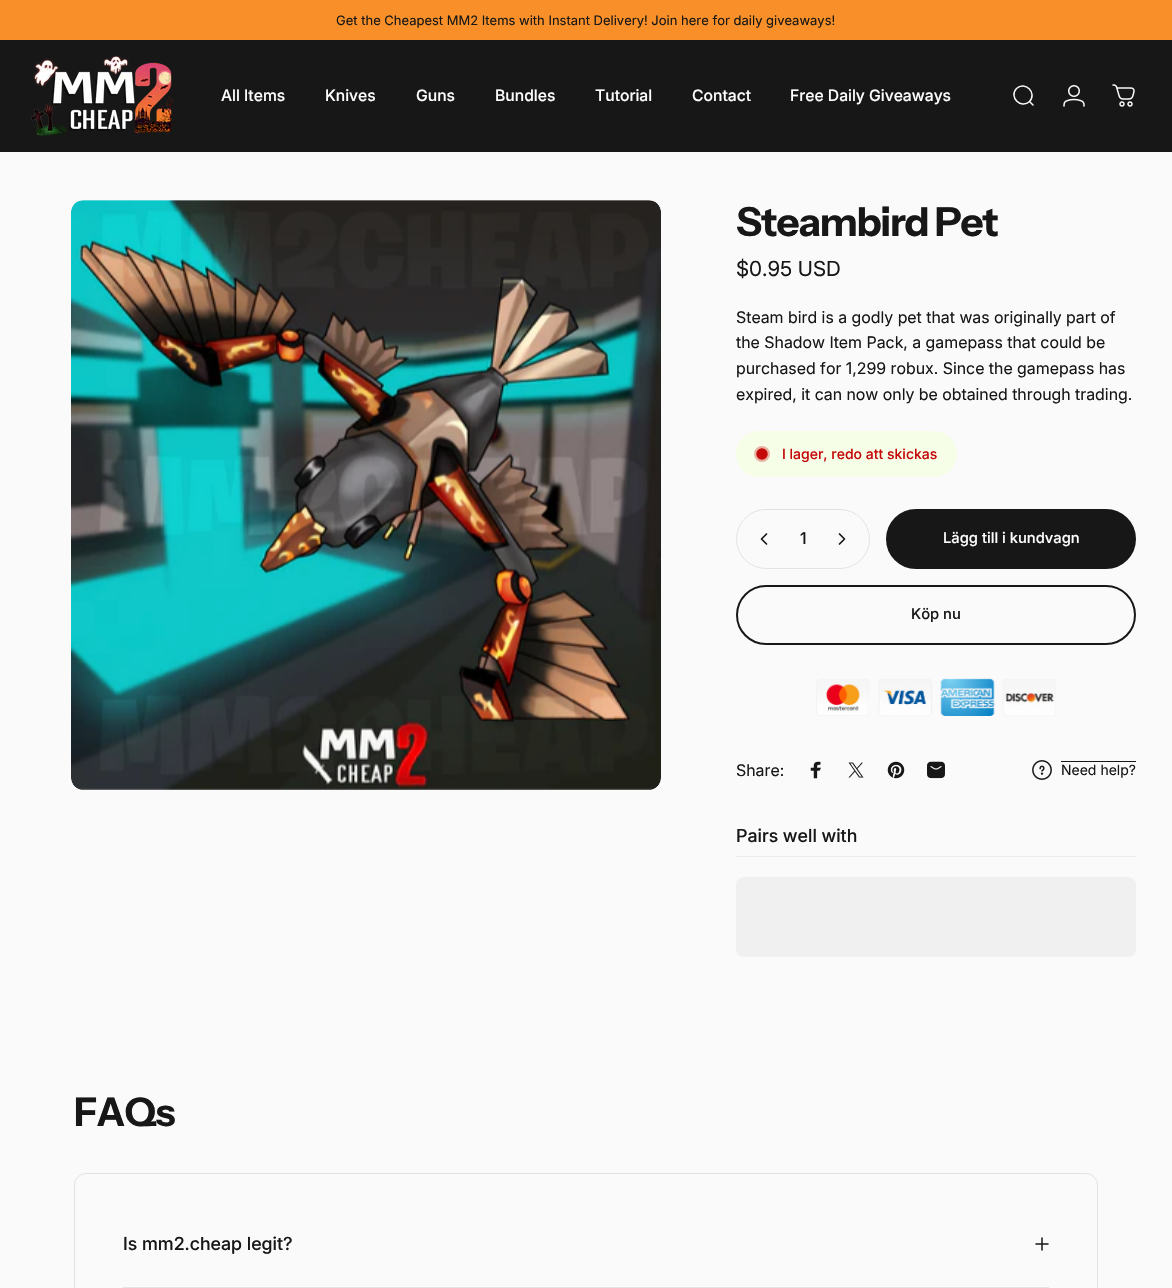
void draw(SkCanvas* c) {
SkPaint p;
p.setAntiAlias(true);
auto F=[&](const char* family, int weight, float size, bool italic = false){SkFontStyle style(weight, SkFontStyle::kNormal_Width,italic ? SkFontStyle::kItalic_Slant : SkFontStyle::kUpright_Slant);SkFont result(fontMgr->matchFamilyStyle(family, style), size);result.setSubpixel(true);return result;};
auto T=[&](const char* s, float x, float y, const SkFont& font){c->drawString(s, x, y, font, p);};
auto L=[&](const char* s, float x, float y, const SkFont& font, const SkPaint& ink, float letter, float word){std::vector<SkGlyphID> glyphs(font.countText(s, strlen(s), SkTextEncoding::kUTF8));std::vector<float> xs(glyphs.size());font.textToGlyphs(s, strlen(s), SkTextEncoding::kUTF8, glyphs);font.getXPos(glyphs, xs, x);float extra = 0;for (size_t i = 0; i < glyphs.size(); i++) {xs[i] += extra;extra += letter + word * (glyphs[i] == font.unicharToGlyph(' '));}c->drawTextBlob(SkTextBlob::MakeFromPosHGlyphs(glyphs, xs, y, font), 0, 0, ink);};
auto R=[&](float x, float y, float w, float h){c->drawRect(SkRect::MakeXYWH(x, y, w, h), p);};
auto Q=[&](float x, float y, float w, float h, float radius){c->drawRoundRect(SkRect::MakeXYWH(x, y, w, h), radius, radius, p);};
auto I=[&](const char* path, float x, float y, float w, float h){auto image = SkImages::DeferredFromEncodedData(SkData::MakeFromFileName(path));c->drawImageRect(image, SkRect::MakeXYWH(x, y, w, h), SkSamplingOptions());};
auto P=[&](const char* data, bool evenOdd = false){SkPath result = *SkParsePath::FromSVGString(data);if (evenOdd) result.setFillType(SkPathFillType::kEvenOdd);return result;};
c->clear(0xfffafafa);
p.setColor(0xfff98f28);
R(0,0,1172,40);
auto f1 = F("Inter",400,13);
p.setColor(0xff171717);
T("Get the Cheapest MM2 Items with Instant Delivery! Join here for daily giveaways!",336,25,f1);
R(0,40,1172,112);
I("1.png",30,56,144,80);
auto f2 = F("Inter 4",500,15.75);
p.setColor(0xffffffff);
T("All Items",221,101,f2);
T("Knives",325,101,f2);
T("Guns",416,101,f2);
T("Bundles",495,101,f2);
T("Tutorial",595,101,f2);
T("Contact",692,101,f2);
T("Free Daily Giveaways",790,101,f2);
p.setStroke(true);
p.setStrokeWidth(1.5);
p.setStrokeCap(SkPaint::kRound_Cap);
p.setColor(0xfffafafa);
c->drawPath(P("M1033 105l-3.5-3.5m0 0c8-8.5-4.5-21-13-13c-8 8.5 4.5 21 13 13z"),p);
I("2.png",1063,85,22,22);
I("3.png",1112,84,23,23);
I("4.png",71,200,590,590);
auto f3 = F("Instrument Sans",700,40);
p.setStroke(false);
p.setColor(0xff171717);
L("Steambird Pet",736,236,f3,p,-1.25,0);
auto f4 = F("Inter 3",400,20.75);
T("$0.95 USD",736,276,f4);
auto f5 = F("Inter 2",400,16);
T("Steam bird is a godly pet that was originally part of",736,323,f5);
T("the Shadow Item Pack, a gamepass that could be",736,348,f5);
T("purchased for 1,299 robux. Since the gamepass has",736,374,f5);
T("expired, it can now only be obtained through trading.",736,400,f5);
p.setColor(0xfff7fee7);
Q(736,431,221,46,23);
p.setColor(0xffc50909);
c->drawCircle(762,454,5,p);
p.setStroke(true);
p.setStrokeCap(SkPaint::kButt_Cap);
c->drawCircle(762,454,5,p);
p.setStrokeWidth(3);
p.setColor(0x4dc50909);
c->drawCircle(762,454,6.5,p);
auto f6 = F("Inter",500,14);
p.setStroke(false);
p.setColor(0xffc50909);
T("I lager, redo att skickas",782,459,f6);
p.setStroke(true);
p.setStrokeWidth(1);
p.setColor(0xffe3e3e3);
c->drawRoundRect(SkRect::MakeXYWH(736.5,509.5,133,59),29.5,29.5,p);
p.setStrokeWidth(1.7);
p.setStrokeCap(SkPaint::kRound_Cap);
p.setStrokeJoin(SkPaint::kRound_Join);
p.setColor(0xff171717);
c->drawPath(P("M766.5 534l-5 5l5 5"),p);
auto f7 = F("Inter 3",500,16);
p.setStroke(false);
T("1",800,544,f7);
p.setStroke(true);
c->drawPath(P("M839.5 534l5 5l-5 5"),p);
p.setStroke(false);
c->drawRoundRect(SkRect::MakeXYWH(887,510,248,58),29,29,p);
p.setStroke(true);
p.setStrokeWidth(2);
p.setStrokeCap(SkPaint::kButt_Cap);
p.setStrokeJoin(SkPaint::kMiter_Join);
c->drawRoundRect(SkRect::MakeXYWH(887,510,248,58),29,29,p);
auto f8 = F("Inter",500,14.75);
p.setStroke(false);
p.setColor(0xffffffff);
T("Lägg till i kundvagn",943,543,f8);
p.setStroke(true);
p.setColor(0xff171717);
c->drawRoundRect(SkRect::MakeXYWH(737,586,398,58),29,29,p);
p.setStroke(false);
T("Köp nu",911,619,f8);
I("5.png",816,678,240,38);
T("Share:",736,776,f5);
I("6.png",810,761,11,18);
I("7.png",848,762,16,16);
I("8.png",887,761,18,18);
I("9.png",927,761,18,18);
I("10.png",1032,760,20,20);
R(1061,761,75,1);
auto f9 = F("Inter",400,14);
T("Need help?",1061,775,f9);
p.setColor(0xffececec);
R(736,856,400,1);
auto f10 = F("Inter 2",500,18);
p.setColor(0xff171717);
T("Pairs well with",736,842,f10);
{
const SkColor colors[] = {0xfff0f0f0,0xffe0e0e0,0xfff0f0f0};
const float stops[] = {.4,.63,.79};
const SkPoint ends[] = {{753,779}, {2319,1055}};
p.setShader(SkGradientShader::MakeLinear(ends, colors, stops, 3, SkTileMode::kClamp));
p.setAlpha(255);
}
Q(736,877,400,80,8);
auto f11 = F("Instrument Sans",700,39.5);
p.setShader(nullptr);
p.setColor(0xff171717);
L("FAQs",74,1126,f11,p,-1,0);
p.setStroke(true);
p.setStrokeWidth(1);
p.setColor(0xffe3e3e3);
c->drawRoundRect(SkRect::MakeXYWH(74.5,1173.5,1023,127),11.5,11.5,p);
p.setStroke(false);
p.setColor(0xff171717);
T("Is mm2.cheap legit?",123,1250,f10);
p.setStroke(true);
p.setStrokeWidth(1.5);
p.setStrokeCap(SkPaint::kRound_Cap);
p.setStrokeJoin(SkPaint::kRound_Join);
c->drawPath(P("M1042 1250v-12m6 6h-12"),p);
p.setStroke(false);
p.setColor(0xffe3e3e3);
R(123,1287,926,1);
}
